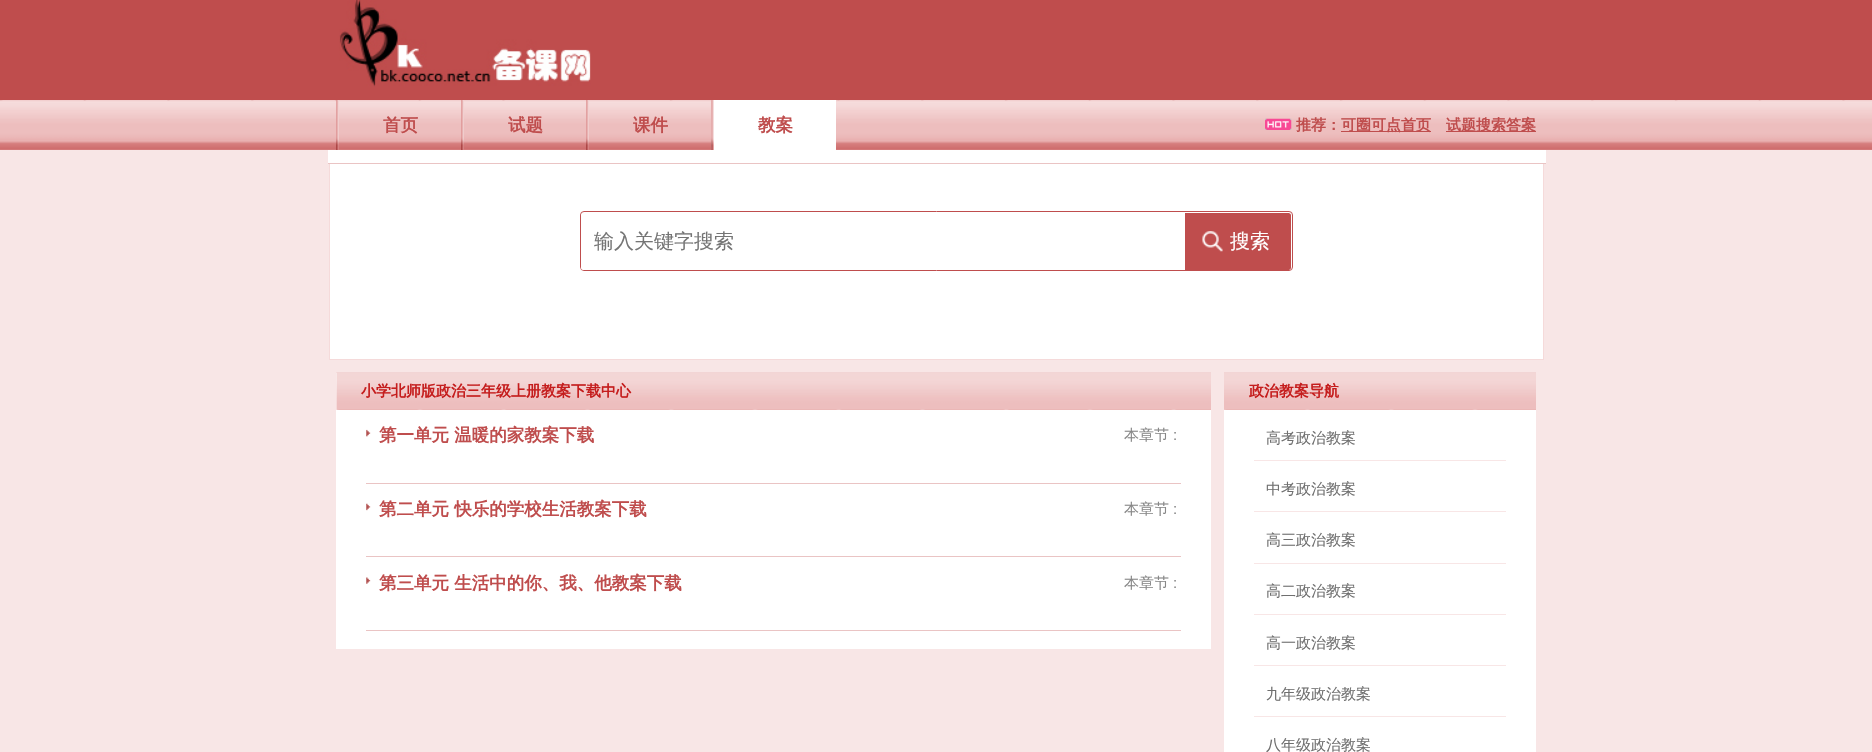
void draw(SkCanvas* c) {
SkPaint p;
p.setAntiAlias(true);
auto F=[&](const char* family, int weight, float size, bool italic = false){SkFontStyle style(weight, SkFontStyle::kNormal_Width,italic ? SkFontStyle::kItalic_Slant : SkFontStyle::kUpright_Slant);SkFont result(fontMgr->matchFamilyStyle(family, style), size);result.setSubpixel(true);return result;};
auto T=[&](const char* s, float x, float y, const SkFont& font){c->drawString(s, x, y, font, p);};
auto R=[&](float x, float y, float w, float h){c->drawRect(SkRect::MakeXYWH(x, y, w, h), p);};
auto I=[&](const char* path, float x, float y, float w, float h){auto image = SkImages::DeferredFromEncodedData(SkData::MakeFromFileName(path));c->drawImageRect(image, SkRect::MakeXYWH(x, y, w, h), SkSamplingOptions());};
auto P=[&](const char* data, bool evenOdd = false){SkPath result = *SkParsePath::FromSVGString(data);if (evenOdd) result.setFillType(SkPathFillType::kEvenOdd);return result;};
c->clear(0xfff8e6e6);
p.setColor(0xffbf4d4d);
R(0,0,1872,100);
I("1.png",339,0,252,87);
I("2.png",0,100,1872,50);
I("3.png",336,100,3,50);
auto f1 = F("WenQuanYi Zen Hei",700,17.5);
T("首页",383,131,f1);
I("4.png",461,100,3,50);
T("试题",508,131,f1);
I("5.png",586,100,3,50);
T("课件",633,131,f1);
p.setColor(0xffffffff);
R(711,100,125,50);
I("6.png",711,100,3,50);
p.setColor(0xffbf4d4d);
T("教案",758,131,f1);
I("7.png",1265,118,27,12);
auto f2 = F("WenQuanYi Zen Hei",700,15);
T("推荐：",1296,130,f2);
R(1341,131,90,1);
T("可圈可点首页",1341,130,f2);
R(1446,131,90,1);
T("试题搜索答案",1446,130,f2);
p.setColor(0xffffffff);
R(328,150,1218,13);
p.setColor(0xffeac4c4);
R(328,163,1218,1);
p.setColor(0xffffffff);
R(330,164,1213,195);
p.setColor(0xfff5dada);
R(1543,164,1,196);
R(329,359,1215,1);
R(329,164,1,196);
p.setStroke(true);
p.setStrokeWidth(1);
p.setColor(0xffbf4d4d);
c->drawRoundRect(SkRect::MakeXYWH(580.5,211.5,712,59),3.5,3.5,p);
p.setStroke(false);
p.setColor(0xffffffff);
c->drawPath(P("M583.5 213h601.5v57h-601.5c-1.5 0-2.5-1-2.5-2.5v-52c0-1.5 1-2.5 2.5-2.5z"),p);
auto f3 = F("WenQuanYi Zen Hei",500,20);
p.setColor(0xff757575);
T("输入关键字搜索",594,248,f3);
p.setColor(0xffbf4d4d);
c->drawPath(P("M1185 213h103.5c1.5 0 2.5 1 2.5 2.5v52c0 1.5-1 2.5-2.5 2.5h-103.5z"),p);
I("8.png",1202,231,21,21);
p.setColor(0xffffffff);
T("搜索",1230,248,f3);
R(336,373,875,276);
I("9.png",336,372,875,38);
p.setColor(0xffc51d1d);
T("小学北师版政治三年级上册教案下载中心",361,396,f2);
p.setColor(0xffeac4c4);
R(366,483,815,1);
I("10.png",366,429,5,8);
p.setColor(0xffbf4d4d);
T("第一单元 温暖的家教案下载",379,441,f1);
auto f4 = F("WenQuanYi Zen Hei",500,15);
p.setColor(0xff888888);
T("本章节",1124,440,f4);
auto f5 = F("Liberation Sans",400,15);
T(":",1173,440,f5);
p.setColor(0xffeac4c4);
R(366,556,815,1);
I("11.png",366,503,5,8);
p.setColor(0xffbf4d4d);
T("第二单元 快乐的学校生活教案下载",379,515,f1);
p.setColor(0xff888888);
T("本章节",1124,514,f4);
T(":",1173,514,f5);
p.setColor(0xffeac4c4);
R(366,630,815,1);
I("12.png",366,577,5,7);
p.setColor(0xffbf4d4d);
T("第三单元 生活中的你、我、他教案下载",379,589,f1);
p.setColor(0xff888888);
T("本章节",1124,588,f4);
T(":",1173,588,f5);
p.setColor(0xffffffff);
R(1224,409,312,343);
I("13.png",1224,372,312,38);
p.setColor(0xffc51d1d);
T("政治教案导航",1249,396,f2);
p.setColor(0xfff8e6e6);
R(1254,460,252,1);
p.setColor(0xff6f6f6f);
T("高考政治教案",1266,443,f4);
p.setColor(0xfff8e6e6);
R(1254,511,252,1);
p.setColor(0xff6f6f6f);
T("中考政治教案",1266,494,f4);
p.setColor(0xfff8e6e6);
R(1254,563,252,1);
p.setColor(0xff6f6f6f);
T("高三政治教案",1266,545,f4);
p.setColor(0xfff8e6e6);
R(1254,614,252,1);
p.setColor(0xff6f6f6f);
T("高二政治教案",1266,596,f4);
p.setColor(0xfff8e6e6);
R(1254,665,252,1);
p.setColor(0xff6f6f6f);
T("高一政治教案",1266,648,f4);
p.setColor(0xfff8e6e6);
R(1254,716,252,1);
p.setColor(0xff6f6f6f);
T("九年级政治教案",1266,699,f4);
T("八年级政治教案",1266,750,f4);
}
